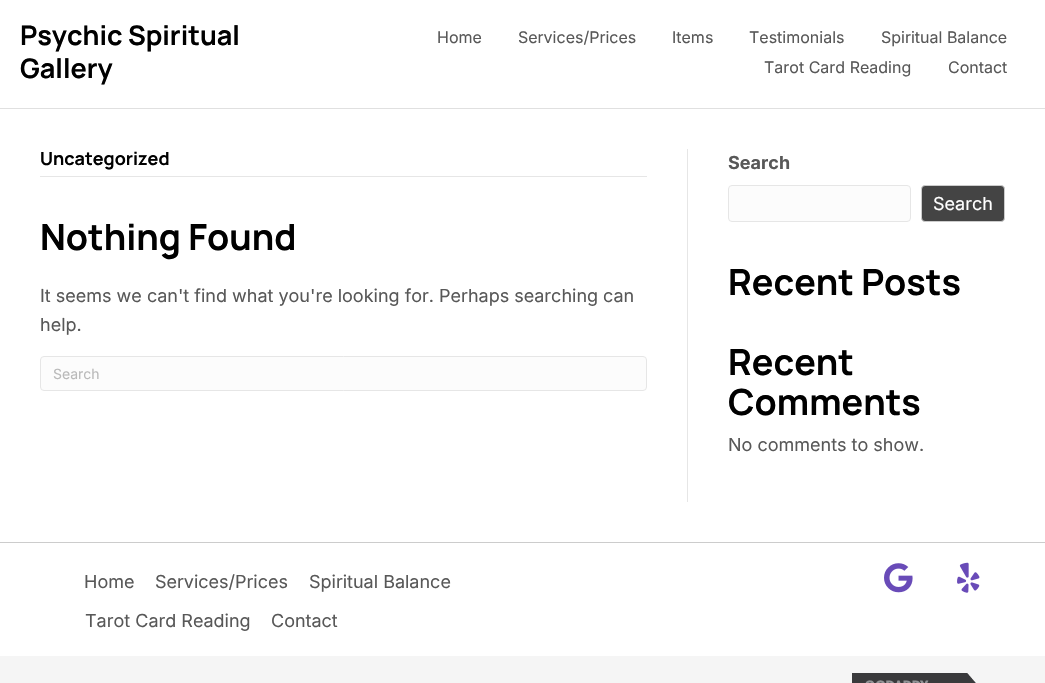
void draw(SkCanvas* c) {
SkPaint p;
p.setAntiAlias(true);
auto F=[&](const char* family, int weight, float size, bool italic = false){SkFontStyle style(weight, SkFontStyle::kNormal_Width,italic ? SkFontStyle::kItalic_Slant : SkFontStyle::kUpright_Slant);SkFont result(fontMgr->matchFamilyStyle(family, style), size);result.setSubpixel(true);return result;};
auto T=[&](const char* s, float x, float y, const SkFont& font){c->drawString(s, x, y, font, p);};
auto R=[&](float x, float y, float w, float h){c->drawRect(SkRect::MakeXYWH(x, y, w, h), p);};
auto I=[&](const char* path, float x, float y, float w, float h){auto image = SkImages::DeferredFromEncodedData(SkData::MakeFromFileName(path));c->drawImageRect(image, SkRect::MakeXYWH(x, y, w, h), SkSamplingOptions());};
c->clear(0xffffffff);
p.setColor(0xffe0e0e0);
R(0,108,1045,1);
auto f1 = F("Manrope",200,27);
p.setColor(0xff000000);
T("Psychic Spiritual",20,45,f1);
T("Gallery",20,78,f1);
auto f2 = F("Inter",400,16);
p.setColor(0xff585858);
T("Home",437,43,f2);
T("Services/Prices",518,43,f2);
T("Items",672,43,f2);
T("Testimonials",749,43,f2);
T("Spiritual Balance",881,43,f2);
T("Tarot Card Reading",764,73,f2);
T("Contact",948,73,f2);
p.setColor(0xffe6e6e6);
R(687,149,1,353);
R(40,176,607,1);
auto f3 = F("Manrope",200,18);
p.setColor(0xff000000);
T("Uncategorized",40,165,f3);
auto f4 = F("Manrope",200,36);
T("Nothing Found",40,250,f4);
auto f5 = F("Inter",400,18);
p.setColor(0xff585858);
T("It seems we can't find what you're looking for. Perhaps searching can",40,302,f5);
T("help.",40,331,f5);
p.setColor(0xfffcfcfc);
c->drawRoundRect(SkRect::MakeXYWH(40.5,356.5,606,34),3.5,3.5,p);
p.setStroke(true);
p.setStrokeWidth(1);
p.setColor(0xffe6e6e6);
c->drawRoundRect(SkRect::MakeXYWH(40.5,356.5,606,34),3.5,3.5,p);
auto f6 = F("Inter",400,14);
p.setStroke(false);
p.setColor(0xffbababa);
T("Search",53,379,f6);
auto f7 = F("Inter",700,18);
p.setColor(0xff585858);
T("Search",728,169,f7);
p.setColor(0xfffcfcfc);
c->drawRoundRect(SkRect::MakeXYWH(728.5,185.5,182,36),3.5,3.5,p);
p.setStroke(true);
p.setColor(0xffe6e6e6);
c->drawRoundRect(SkRect::MakeXYWH(728.5,185.5,182,36),3.5,3.5,p);
p.setStroke(false);
p.setColor(0xff444444);
c->drawRoundRect(SkRect::MakeXYWH(921.5,185.5,83,36),3.5,3.5,p);
p.setStroke(true);
p.setColor(0xffcccccc);
c->drawRoundRect(SkRect::MakeXYWH(921.5,185.5,83,36),3.5,3.5,p);
p.setStroke(false);
p.setColor(0xffffffff);
T("Search",933,210,f5);
p.setColor(0xff000000);
T("Recent Posts",728,295,f4);
T("Recent",728,375,f4);
T("Comments",728,415,f4);
p.setColor(0xff585858);
T("No comments to show.",728,451,f5);
p.setColor(0xffcccccc);
R(0,542,1045,1);
p.setColor(0xff585858);
T("Home",84,588,f5);
T("Services/Prices",155,588,f5);
T("Spiritual Balance",309,588,f5);
T("Tarot Card Reading",85,627,f5);
T("Contact",271,627,f5);
I("1.png",884,563,29,30);
I("2.png",957,562,23,31);
p.setColor(0xfff5f5f5);
R(0,656,1045,27);
I("3.png",852,673,124,10);
}
